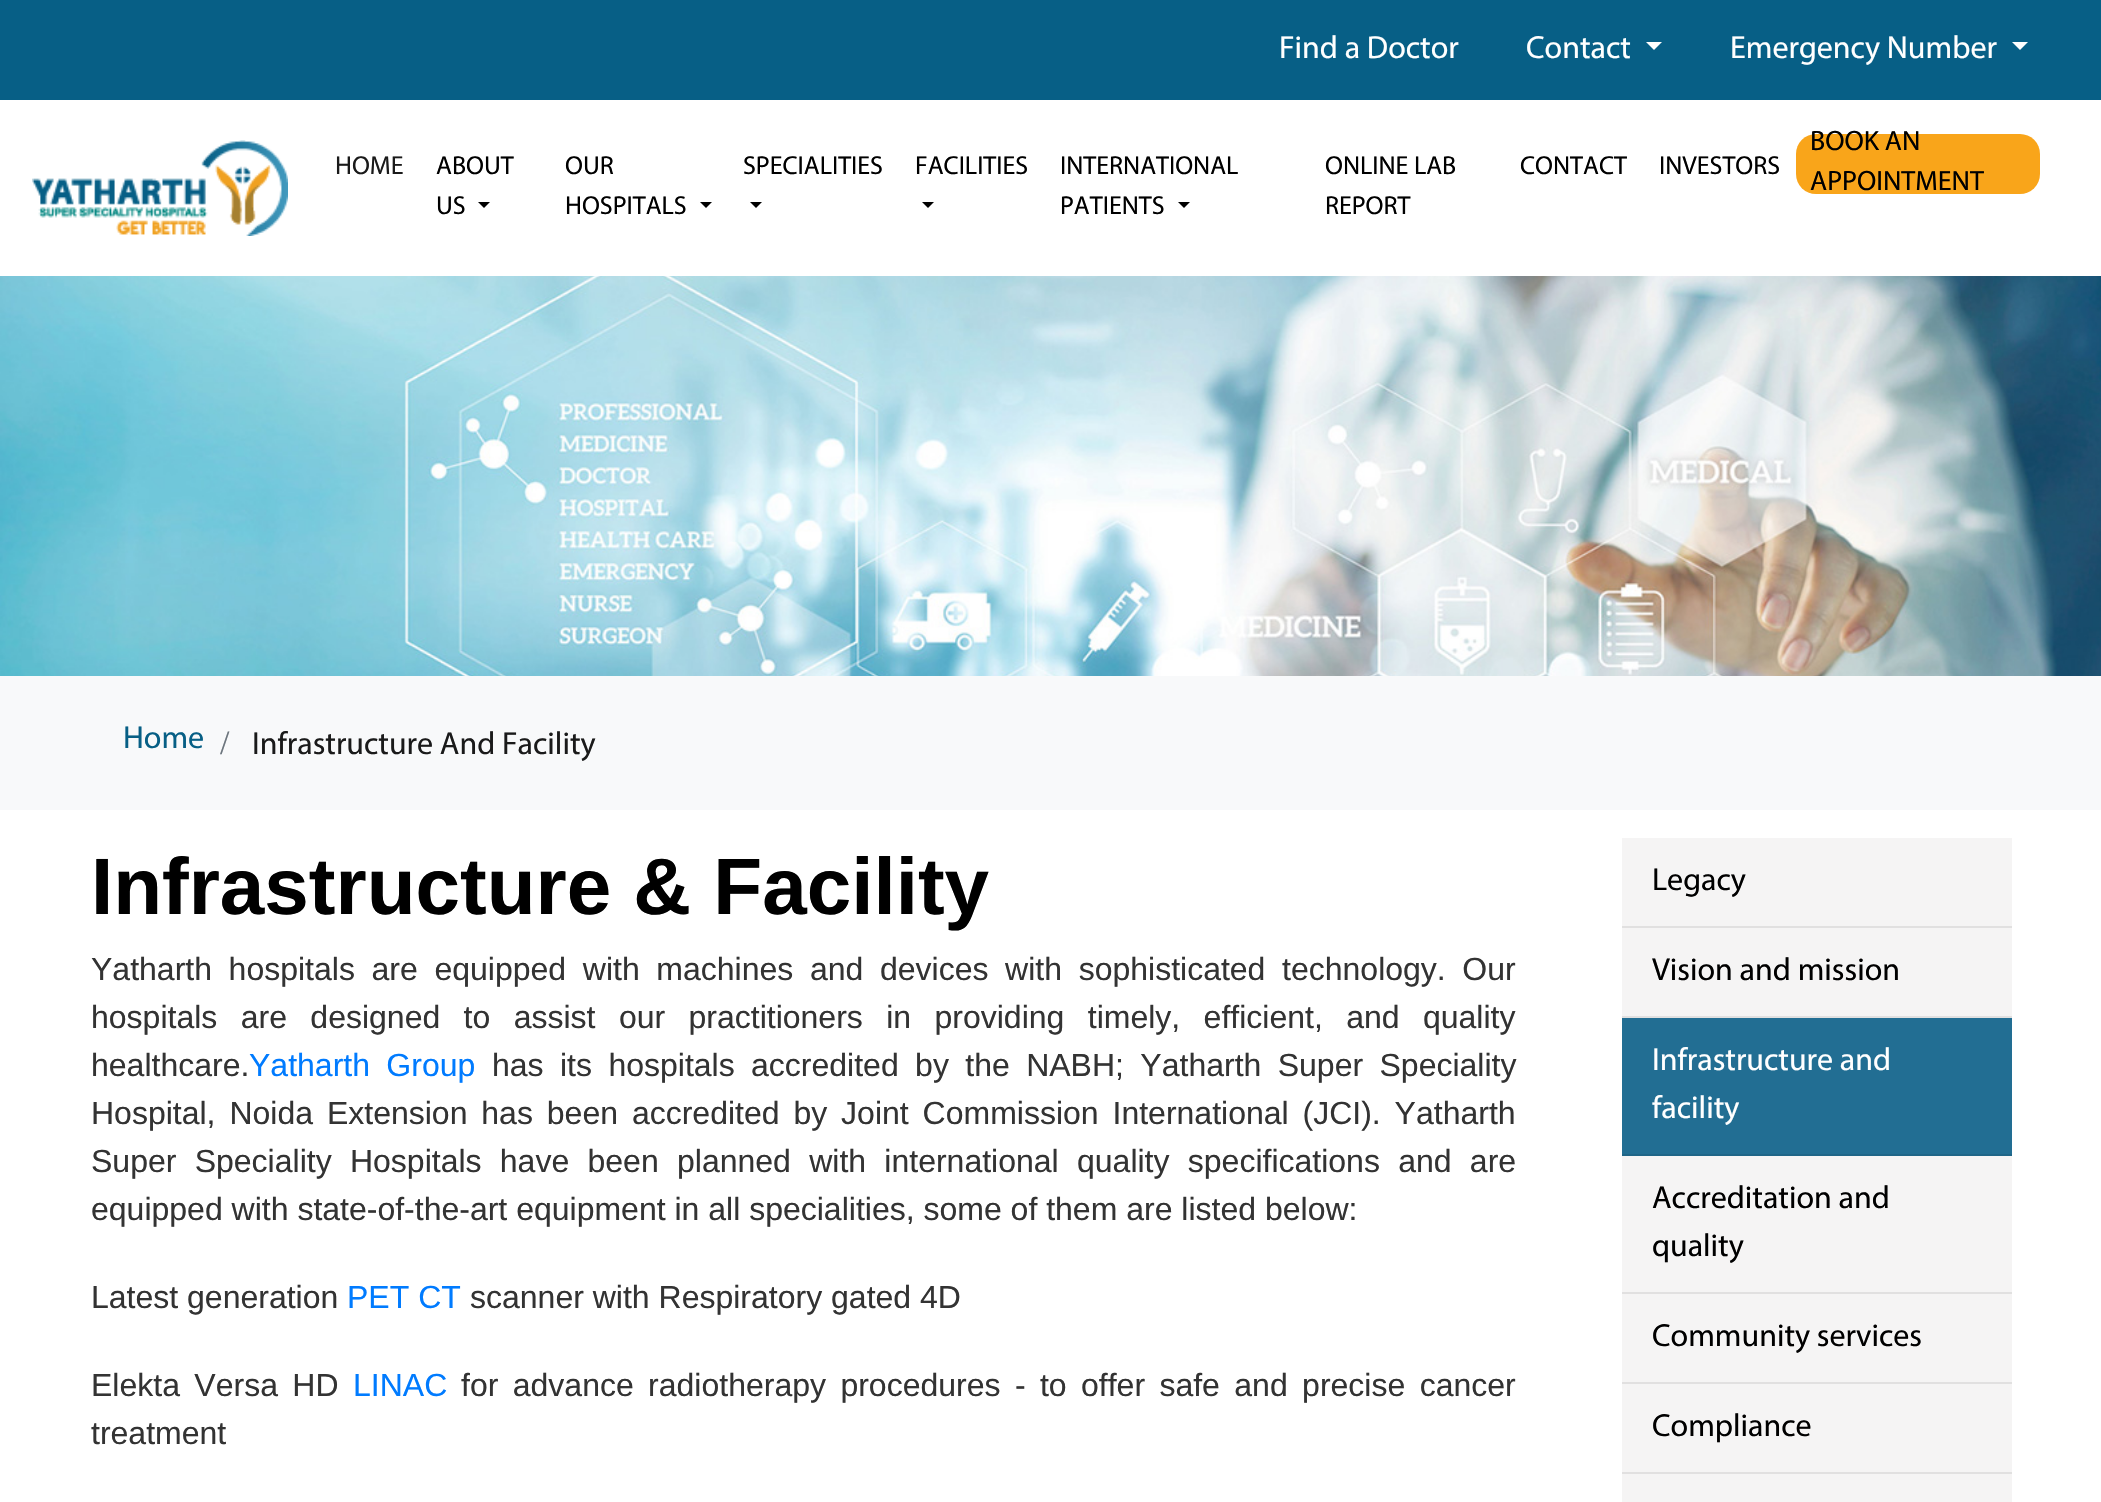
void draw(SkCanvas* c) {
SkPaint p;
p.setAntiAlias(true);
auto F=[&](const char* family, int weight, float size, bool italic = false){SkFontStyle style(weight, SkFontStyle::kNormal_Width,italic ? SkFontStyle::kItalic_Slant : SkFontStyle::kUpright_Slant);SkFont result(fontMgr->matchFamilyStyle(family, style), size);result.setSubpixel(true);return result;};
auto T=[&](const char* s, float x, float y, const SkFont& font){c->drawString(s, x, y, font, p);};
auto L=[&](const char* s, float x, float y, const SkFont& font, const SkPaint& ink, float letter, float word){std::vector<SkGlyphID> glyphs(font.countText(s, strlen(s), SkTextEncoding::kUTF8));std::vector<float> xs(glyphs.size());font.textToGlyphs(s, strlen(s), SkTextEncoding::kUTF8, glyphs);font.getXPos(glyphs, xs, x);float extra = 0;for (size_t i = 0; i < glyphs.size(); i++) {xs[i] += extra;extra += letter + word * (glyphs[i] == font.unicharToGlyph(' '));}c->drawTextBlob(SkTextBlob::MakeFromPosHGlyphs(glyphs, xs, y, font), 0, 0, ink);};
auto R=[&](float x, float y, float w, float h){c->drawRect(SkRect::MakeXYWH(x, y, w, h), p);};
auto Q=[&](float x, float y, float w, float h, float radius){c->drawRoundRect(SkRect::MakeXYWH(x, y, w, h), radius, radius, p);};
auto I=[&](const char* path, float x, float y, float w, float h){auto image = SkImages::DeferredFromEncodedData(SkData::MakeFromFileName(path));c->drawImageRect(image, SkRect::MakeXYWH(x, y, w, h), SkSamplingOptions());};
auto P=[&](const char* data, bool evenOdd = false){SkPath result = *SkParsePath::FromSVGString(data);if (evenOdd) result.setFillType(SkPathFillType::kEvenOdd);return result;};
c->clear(0xffffffff);
p.setColor(0xff075f86);
R(0,0,2101,100);
auto f1 = F("Myriad",400,32);
p.setColor(0xffffffff);
T("Find a Doctor",1279,58,f1);
T("Contact",1526,58,f1);
c->drawPath(P("M1646 42h16l-8 8z"),p);
T("Emergency Number",1730,58,f1);
c->drawPath(P("M2012 42h16l-8 8z"),p);
I("1.png",32,140,256,96);
auto f2 = F("Myriad",400,26);
p.setColor(0xff1a1a1a);
T("HOME",335,174,f2);
p.setColor(0xff000000);
T("ABOUT",436,174,f2);
T("US",436,214,f2);
c->drawPath(P("M478 202h12l-6 6z"),p);
T("OUR",565,174,f2);
T("HOSPITALS",565,214,f2);
c->drawPath(P("M700 202h12l-6 6z"),p);
T("SPECIALITIES",743,174,f2);
c->drawPath(P("M750 202h12l-6 6z"),p);
T("FACILITIES",915,174,f2);
c->drawPath(P("M922 202h12l-6 6z"),p);
T("INTERNATIONAL",1060,174,f2);
T("PATIENTS",1060,214,f2);
c->drawPath(P("M1178 202h12l-6 6z"),p);
T("ONLINE LAB",1325,174,f2);
T("REPORT",1325,214,f2);
T("CONTACT",1520,174,f2);
T("INVESTORS",1659,174,f2);
p.setColor(0xfff9a51a);
Q(1796,134,244,60,20);
auto f3 = F("Myriad",400,28);
p.setColor(0xff000000);
T("BOOK AN",1810,150,f3);
T("APPOINTMENT",1810,190,f3);
I("2.png",0,276,2101,400);
p.setColor(0xfff8f9fa);
R(0,676,2101,134);
p.setColor(0xff075f85);
T("Home",123,748,f1);
auto f4 = F("Liberation Serif",400,34);
p.setColor(0xff6c757d);
T("/",220,754,f4);
p.setColor(0xff1a1a1a);
T("Infrastructure And Facility",252,754,f1);
auto f5 = F("Liberation Sans",700,80);
p.setColor(0xff000000);
T("Infrastructure & Facility",91,914,f5);
auto f6 = F("Liberation Sans",400,32);
p.setColor(0xff333333);
L("Yatharth hospitals are equipped with machines and devices with sophisticated technology. Our",91,980,f6,p,0,7.75);
L("hospitals are designed to assist our practitioners in providing timely, efficient, and quality",91,1028,f6,p,0,14.5);
T("healthcare.",91,1076,f6);
p.setColor(0xff007bff);
L("Yatharth Group",249,1076,f6,p,0,7.5);
p.setColor(0xff333333);
L("has its hospitals accredited by the NABH; Yatharth Super Speciality",492,1076,f6,p,0,7.5);
L("Hospital, Noida Extension has been accredited by Joint Commission International (JCI). Yatharth",91,1124,f6,p,0,5);
L("Super Speciality Hospitals have been planned with international quality specifications and are",91,1172,f6,p,0,9.4);
T("equipped with state-of-the-art equipment in all specialities, some of them are listed below:",91,1220,f6);
T("Latest generation",91,1308,f6);
p.setColor(0xff007bff);
T("PET CT",347,1308,f6);
p.setColor(0xff333333);
T("scanner with Respiratory gated 4D",470,1308,f6);
L("Elekta Versa HD",91,1396,f6,p,0,5.5);
p.setColor(0xff007bff);
T("LINAC",353,1396,f6);
p.setColor(0xff333333);
L("for advance radiotherapy procedures - to offer safe and precise cancer",461,1396,f6,p,0,5.5);
T("treatment",91,1444,f6);
p.setColor(0xfff5f4f4);
R(1622,838,390,88);
p.setColor(0xffe1e0e0);
R(1622,926,390,2);
p.setColor(0xff000000);
T("Legacy",1652,890,f1);
p.setColor(0xfff5f4f4);
R(1622,928,390,88);
p.setColor(0xffe1e0e0);
R(1622,1016,390,2);
p.setColor(0xff000000);
T("Vision and mission",1652,980,f1);
p.setColor(0xff226e93);
R(1622,1018,390,136);
p.setColor(0xff1f6587);
R(1622,1154,390,2);
p.setColor(0xffffffff);
T("Infrastructure and",1652,1070,f1);
T("facility",1652,1118,f1);
p.setColor(0xfff5f4f4);
R(1622,1156,390,136);
p.setColor(0xffe1e0e0);
R(1622,1292,390,2);
p.setColor(0xff000000);
T("Accreditation and",1652,1208,f1);
T("quality",1652,1256,f1);
p.setColor(0xfff5f4f4);
R(1622,1294,390,88);
p.setColor(0xffe1e0e0);
R(1622,1382,390,2);
p.setColor(0xff000000);
T("Community services",1652,1346,f1);
p.setColor(0xfff5f4f4);
R(1622,1384,390,88);
p.setColor(0xffe1e0e0);
R(1622,1472,390,2);
p.setColor(0xff000000);
T("Compliance",1652,1436,f1);
p.setColor(0xfff5f4f4);
R(1622,1474,390,28);
}
